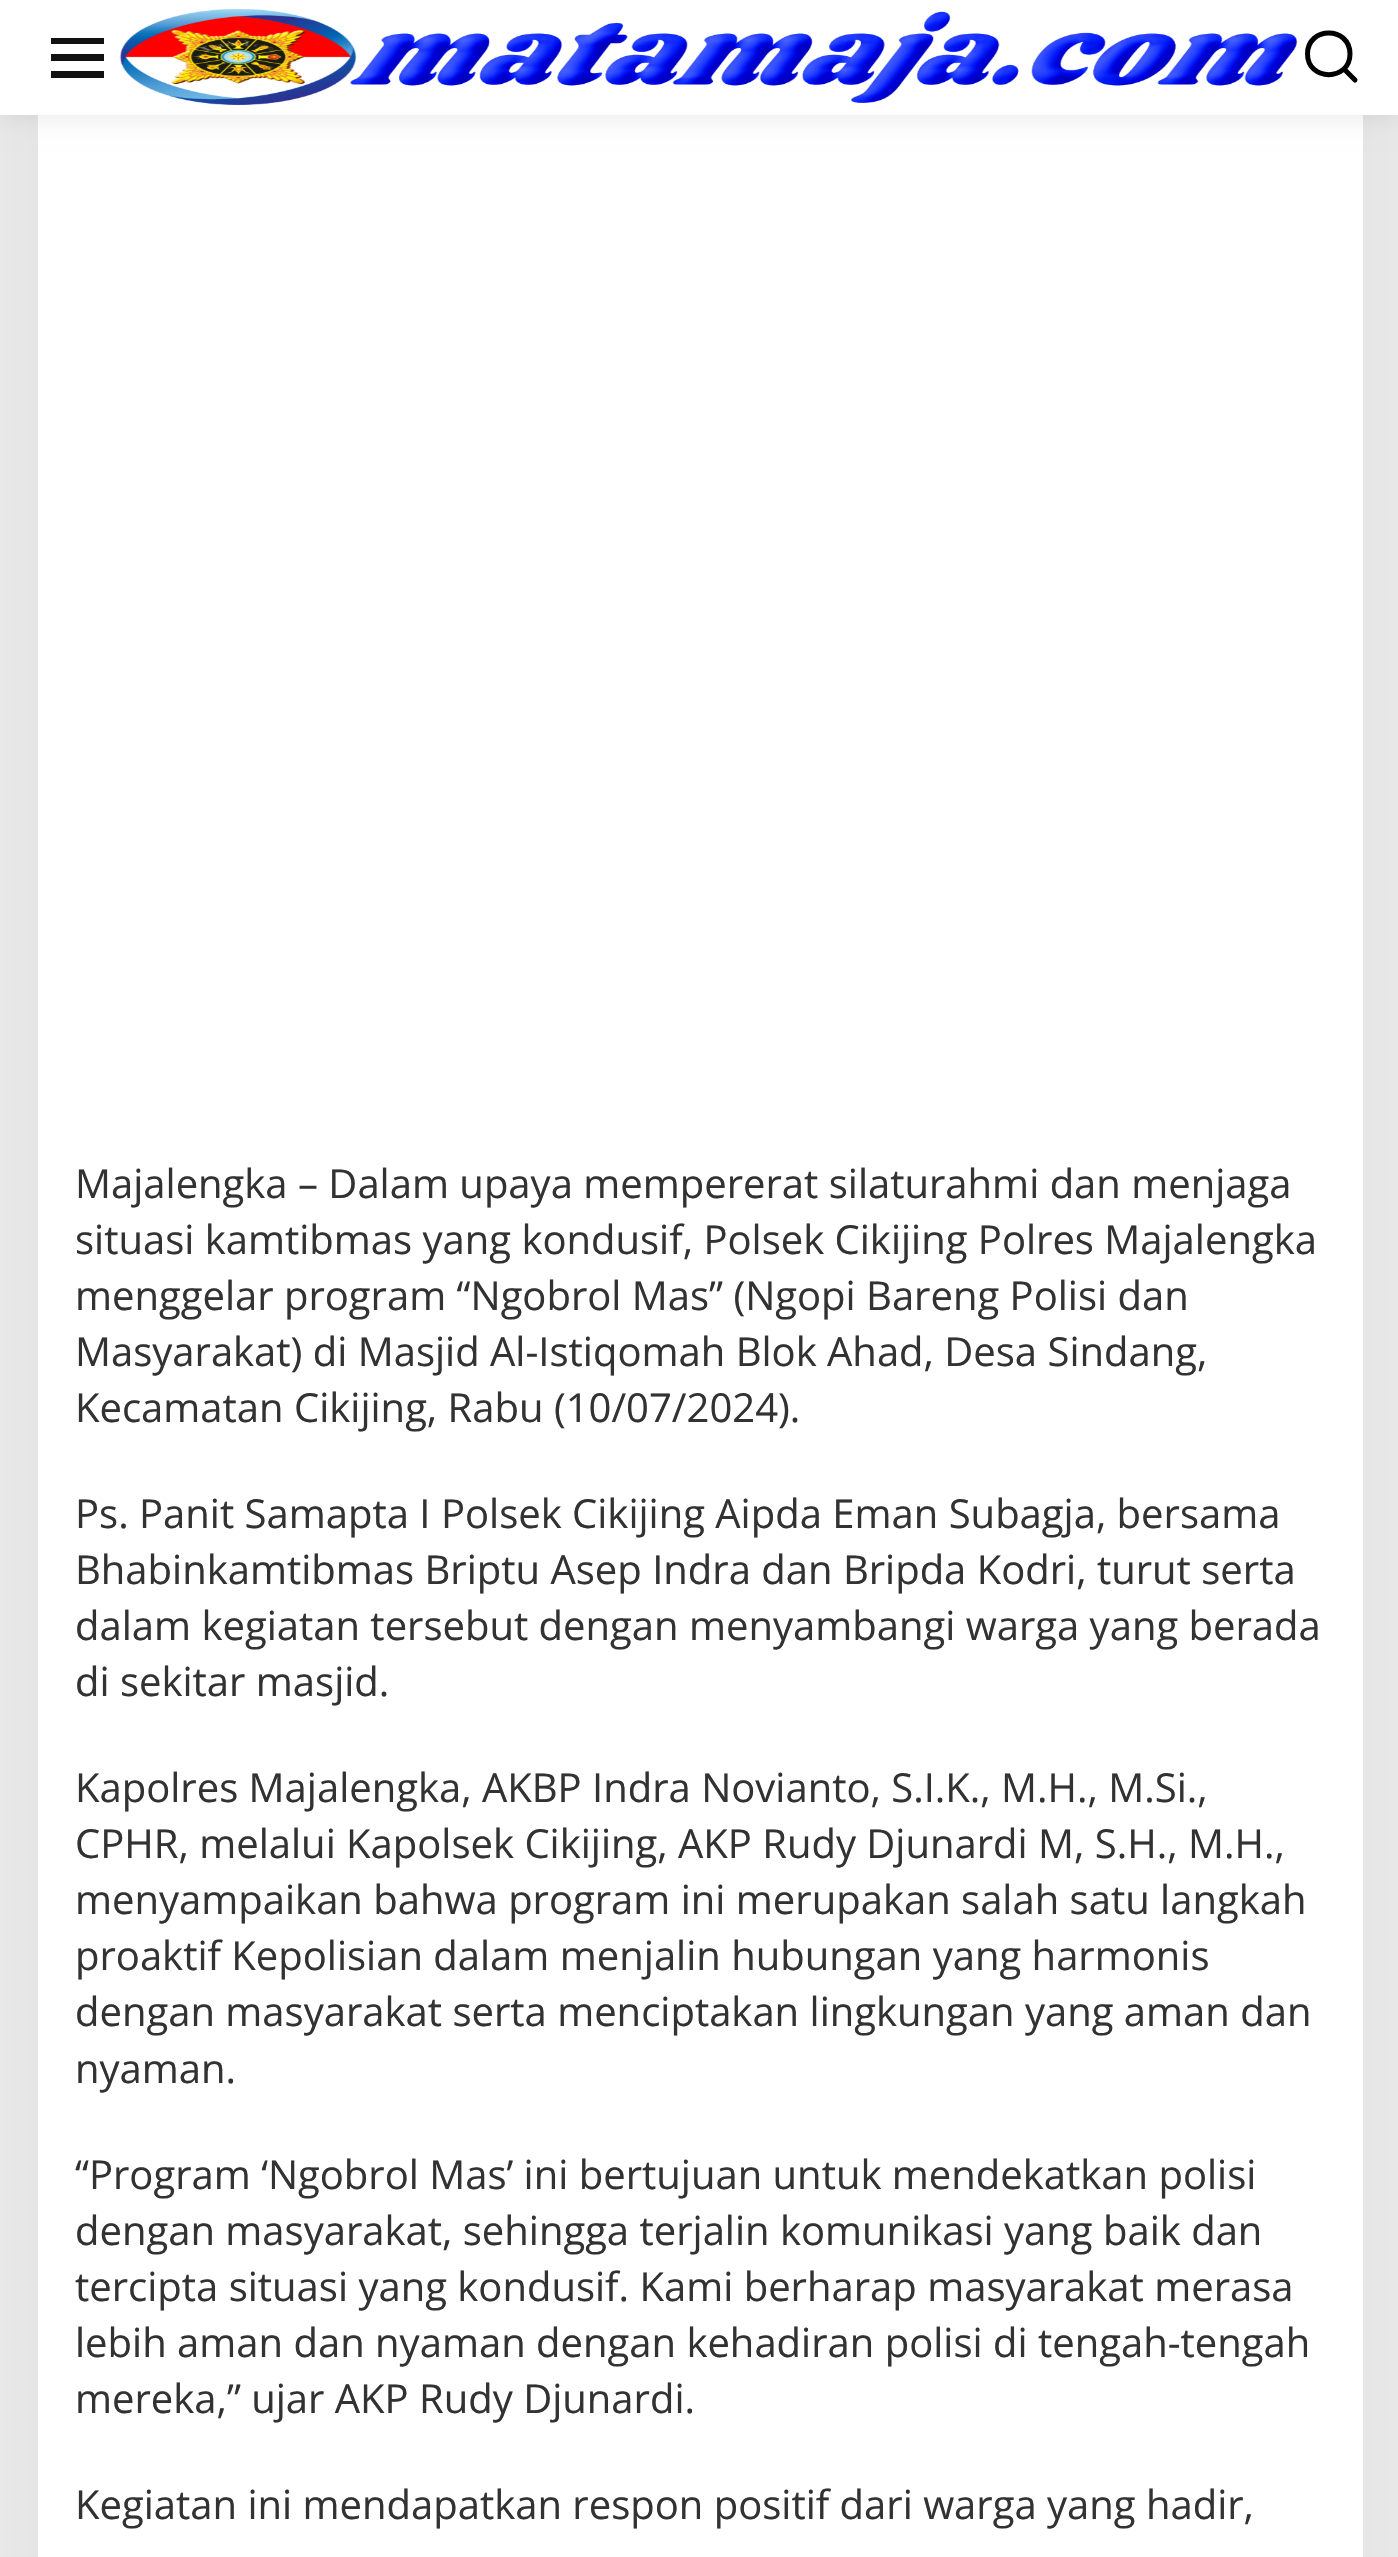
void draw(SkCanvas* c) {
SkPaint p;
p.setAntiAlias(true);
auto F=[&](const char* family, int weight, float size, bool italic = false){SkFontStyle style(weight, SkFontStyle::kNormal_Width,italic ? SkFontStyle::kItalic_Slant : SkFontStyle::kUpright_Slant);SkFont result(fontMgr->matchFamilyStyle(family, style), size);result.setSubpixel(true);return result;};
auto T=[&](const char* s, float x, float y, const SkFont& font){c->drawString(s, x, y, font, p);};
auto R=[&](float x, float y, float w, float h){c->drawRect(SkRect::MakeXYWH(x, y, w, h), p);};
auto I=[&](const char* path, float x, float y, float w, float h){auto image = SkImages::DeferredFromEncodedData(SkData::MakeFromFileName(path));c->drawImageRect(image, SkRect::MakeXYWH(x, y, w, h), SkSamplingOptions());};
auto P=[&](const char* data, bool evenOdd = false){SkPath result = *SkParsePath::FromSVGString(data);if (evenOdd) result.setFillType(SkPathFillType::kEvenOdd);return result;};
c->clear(0xffeeeeee);
p.setColor(0x12000000);
p.setMaskFilter(SkMaskFilter::MakeBlur(kNormal_SkBlurStyle, 56));
c->drawRect(SkRect::MakeXYWH(38,-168,1325,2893),p);
p.setMaskFilter(nullptr);
p.setColor(0xffffffff);
R(38,115,1325,2442);
p.setColor(0x1a000000);
p.setMaskFilter(SkMaskFilter::MakeBlur(kNormal_SkBlurStyle, 12.5));
c->drawRect(SkRect::MakeXYWH(0,0,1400,115),p);
p.setMaskFilter(nullptr);
p.setColor(0xffffffff);
R(0,0,1398,115);
p.setColor(0xff111111);
c->drawPath(P("M51 38h53v6h-53zm0 16h53v7h-53zm0 17h53v7h-53z"),p);
I("1.png",119,9,1179,96);
p.setStroke(true);
p.setStrokeWidth(5);
p.setStrokeCap(SkPaint::kRound_Cap);
p.setColor(0xff000000);
c->drawPath(P("M1355 80l-11-11m6-15c0 27.5-42.5 27.5-42.5 0c0-28 42.5-28 42.5 0z"),p);
auto f1 = F("Open Sans",400,40);
p.setStroke(false);
p.setColor(0xff323233);
T("Majalengka – Dalam upaya mempererat silaturahmi dan menjaga",75,1198,f1);
T("situasi kamtibmas yang kondusif, Polsek Cikijing Polres Majalengka",75,1254,f1);
T("menggelar program “Ngobrol Mas” (Ngopi Bareng Polisi dan",75,1310,f1);
T("Masyarakat) di Masjid Al-Istiqomah Blok Ahad, Desa Sindang,",75,1366,f1);
T("Kecamatan Cikijing, Rabu (10/07/2024).",75,1422,f1);
T("Ps. Panit Samapta I Polsek Cikijing Aipda Eman Subagja, bersama",75,1528,f1);
T("Bhabinkamtibmas Briptu Asep Indra dan Bripda Kodri, turut serta",75,1584,f1);
T("dalam kegiatan tersebut dengan menyambangi warga yang berada",75,1640,f1);
T("di sekitar masjid.",75,1696,f1);
T("Kapolres Majalengka, AKBP Indra Novianto, S.I.K., M.H., M.Si.,",75,1802,f1);
T("CPHR, melalui Kapolsek Cikijing, AKP Rudy Djunardi M, S.H., M.H.,",75,1858,f1);
T("menyampaikan bahwa program ini merupakan salah satu langkah",75,1914,f1);
T("proaktif Kepolisian dalam menjalin hubungan yang harmonis",75,1970,f1);
T("dengan masyarakat serta menciptakan lingkungan yang aman dan",75,2026,f1);
T("nyaman.",75,2083,f1);
T("“Program ‘Ngobrol Mas’ ini bertujuan untuk mendekatkan polisi",75,2189,f1);
T("dengan masyarakat, sehingga terjalin komunikasi yang baik dan",75,2245,f1);
T("tercipta situasi yang kondusif. Kami berharap masyarakat merasa",75,2301,f1);
T("lebih aman dan nyaman dengan kehadiran polisi di tengah-tengah",75,2357,f1);
T("mereka,” ujar AKP Rudy Djunardi.",75,2413,f1);
T("Kegiatan ini mendapatkan respon positif dari warga yang hadir,",75,2519,f1);
}
